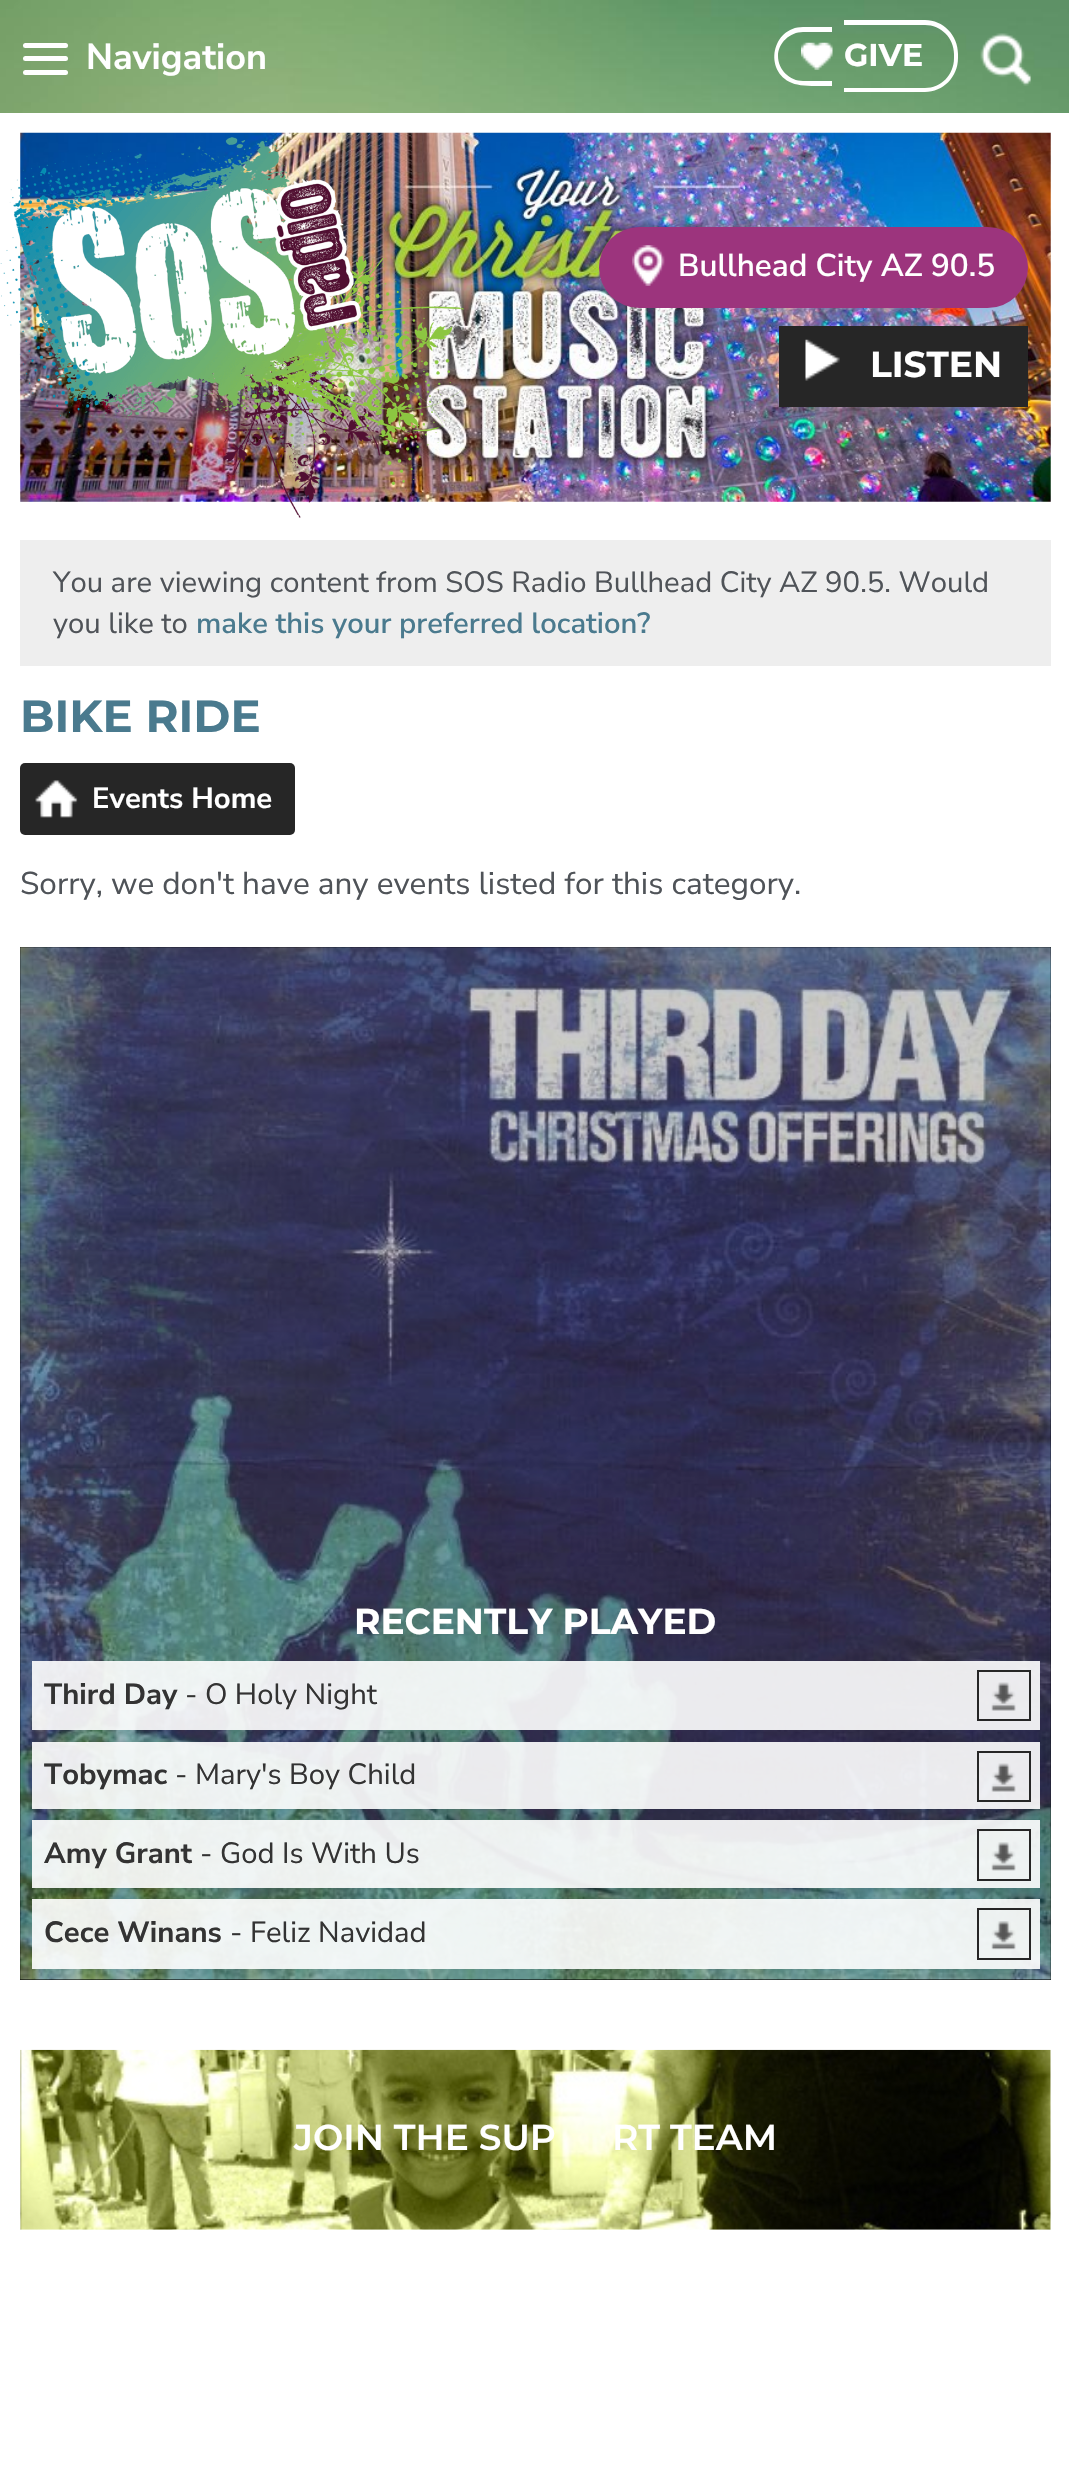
void draw(SkCanvas* c) {
SkPaint p;
p.setAntiAlias(true);
auto F=[&](const char* family, int weight, float size, bool italic = false){SkFontStyle style(weight, SkFontStyle::kNormal_Width,italic ? SkFontStyle::kItalic_Slant : SkFontStyle::kUpright_Slant);SkFont result(fontMgr->matchFamilyStyle(family, style), size);result.setSubpixel(true);return result;};
auto T=[&](const char* s, float x, float y, const SkFont& font){c->drawString(s, x, y, font, p);};
auto R=[&](float x, float y, float w, float h){c->drawRect(SkRect::MakeXYWH(x, y, w, h), p);};
auto Q=[&](float x, float y, float w, float h, float radius){c->drawRoundRect(SkRect::MakeXYWH(x, y, w, h), radius, radius, p);};
auto I=[&](const char* path, float x, float y, float w, float h){auto image = SkImages::DeferredFromEncodedData(SkData::MakeFromFileName(path));c->drawImageRect(image, SkRect::MakeXYWH(x, y, w, h), SkSamplingOptions());};
auto P=[&](const char* data, bool evenOdd = false){SkPath result = *SkParsePath::FromSVGString(data);if (evenOdd) result.setFillType(SkPathFillType::kEvenOdd);return result;};
c->clear(0xffffffff);
I("1.png",0,0,1069,113);
p.setColor(0xffffffff);
Q(23,43,45,5,2.5);
Q(23,56,45,5,2.5);
Q(23,70,45,5,2.5);
auto f1 = F("Nunito Sans",700,36);
T("Navigation",86,69,f1);
c->drawPath(P("M803 27h29v59c-10 0-31 1-40-3c-29-12-20-56 11-56zm0 5h29v49h-29c-13 0-25-11-25-25c0-13 12-24 25-24z",true),p);
c->drawPath(P("M844 20h81c18 0 33 15 33 34v4c0 19-15 34-33 34h-81zm0 5h81c16 0 29 13 29 29v4c0 17-13 30-29 30h-81z",true),p);
I("2.png",801,42,32,28);
auto f2 = F("Montserrat",700,31.5);
T("GIVE",844,66,f2);
I("3.png",980,33,51,53);
I("4.png",20,132,1031,370);
I("5.png",0,137,466,381);
p.setColor(0xff9c347d);
Q(599,227,429,81,40.5);
I("6.png",632,245,33,41);
auto f3 = F("Nunito Sans",600,31.5);
p.setColor(0xffffffff);
T("Bullhead City AZ 90.5",678,276,f3);
p.setColor(0xff262626);
R(779,326,249,81);
I("7.png",805,339,35,42);
auto f4 = F("Montserrat",700,36);
p.setColor(0xffffffff);
T("LISTEN",870,377,f4);
p.setColor(0xffeeeeee);
R(20,540,1031,126);
auto f5 = F("Nunito Sans",400,29.25);
p.setColor(0xff4f5358);
T("You are viewing content from SOS Radio Bullhead City AZ 90.5. Would",53,592,f5);
T("you like to",53,633,f5);
auto f6 = F("Nunito Sans",600,29.25);
p.setColor(0xff4a7a8e);
T("make this your preferred location?",196,633,f6);
auto f7 = F("Montserrat",700,45);
T("BIKE RIDE",20,732,f7);
p.setColor(0xff262626);
Q(20,763,275,72,5);
I("8.png",35,780,43,38);
auto f8 = F("Nunito Sans",700,29.25);
p.setColor(0xffffffff);
T("Events Home",92,808,f8);
auto f9 = F("Nunito Sans",400,31.5);
p.setColor(0xff4f5358);
T("Sorry, we don't have any events listed for this category.",20,894,f9);
p.setColor(0xff000000);
R(20,947,1031,1033);
I("9.png",20,947,1031,1033);
p.setColor(0xffffffff);
T("RECENTLY PLAYED",354,1634,f4);
p.setColor(0xe6ffffff);
R(32,1661,1008,69);
p.setColor(0xff333333);
T("Third Day",44,1704,f8);
T("- O Holy Night",185,1704,f5);
I("10.png",991,1682,25,29);
p.setStroke(true);
p.setStrokeWidth(2);
p.setColor(0xff262626);
c->drawRect(SkRect::MakeXYWH(978,1671,52,49),p);
p.setStroke(false);
p.setColor(0xe6ffffff);
R(32,1742,1008,67);
p.setColor(0xff333333);
T("Tobymac",44,1784,f8);
T("- Mary's Boy Child",175,1784,f5);
I("11.png",991,1763,25,29);
p.setStroke(true);
p.setColor(0xff262626);
c->drawRect(SkRect::MakeXYWH(978,1752,52,49),p);
p.setStroke(false);
p.setColor(0xe6ffffff);
R(32,1820,1008,68);
p.setColor(0xff333333);
T("Amy Grant",44,1863,f8);
T("- God Is With Us",200,1863,f5);
I("12.png",991,1842,25,29);
p.setStroke(true);
p.setColor(0xff262626);
c->drawRect(SkRect::MakeXYWH(978,1830,52,50),p);
p.setStroke(false);
p.setColor(0xe6ffffff);
R(32,1899,1008,70);
p.setColor(0xff333333);
T("Cece Winans",44,1942,f8);
T("- Feliz Navidad",230,1942,f5);
I("13.png",991,1921,25,29);
p.setStroke(true);
p.setColor(0xff262626);
c->drawRect(SkRect::MakeXYWH(978,1909,52,50),p);
I("14.png",20,2049,1031,181);
auto f10 = F("Montserrat",600,36);
p.setStroke(false);
p.setColor(0xffffffff);
T("JOIN THE SUP",294,2150,f10);
T("RT TEAM",612,2150,f10);
}
